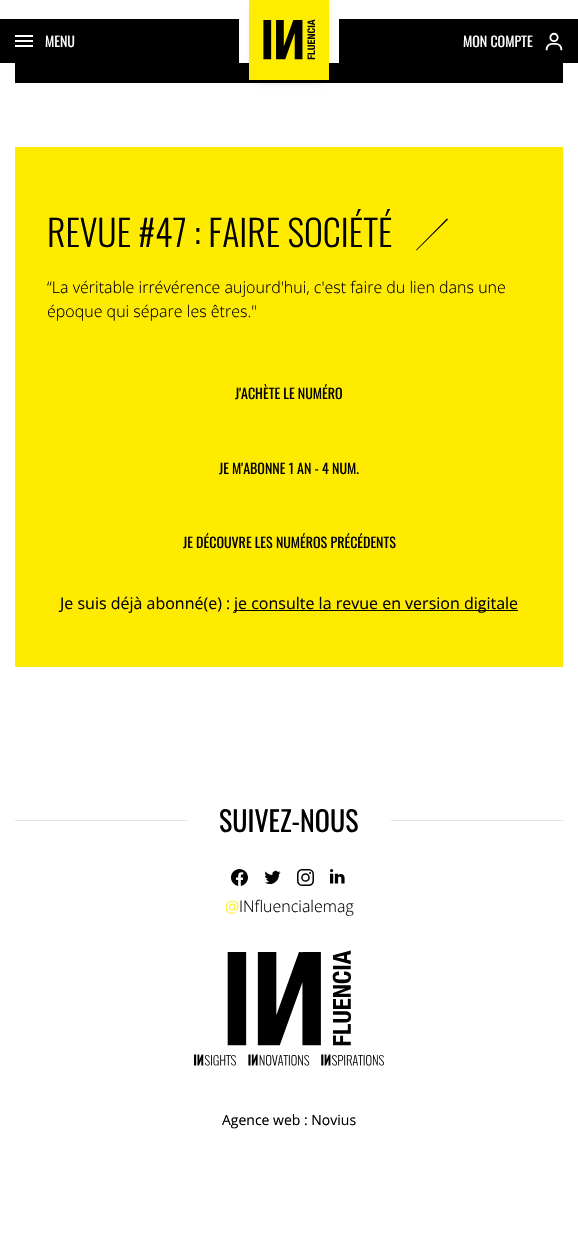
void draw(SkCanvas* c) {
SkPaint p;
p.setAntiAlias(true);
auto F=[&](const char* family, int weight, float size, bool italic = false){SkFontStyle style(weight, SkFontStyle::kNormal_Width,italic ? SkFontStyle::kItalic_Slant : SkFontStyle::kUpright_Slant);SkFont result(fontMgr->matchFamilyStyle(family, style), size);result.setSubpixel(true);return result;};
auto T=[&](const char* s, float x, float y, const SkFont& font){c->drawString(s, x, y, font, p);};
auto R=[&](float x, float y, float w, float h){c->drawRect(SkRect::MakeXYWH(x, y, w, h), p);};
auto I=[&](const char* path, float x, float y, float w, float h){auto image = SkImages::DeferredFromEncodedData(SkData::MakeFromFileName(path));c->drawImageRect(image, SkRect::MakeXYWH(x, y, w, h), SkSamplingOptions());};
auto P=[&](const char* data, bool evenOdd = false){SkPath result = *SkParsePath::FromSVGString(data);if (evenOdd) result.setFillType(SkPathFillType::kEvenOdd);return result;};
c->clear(0xffffffff);
p.setColor(0xff000000);
R(0,19,578,44);
I("1.png",15,35,18,12);
auto f1 = F("Oswald",400,14);
p.setColor(0xffffffff);
T("MENU",45,47,f1);
R(239,19,100,44);
p.setColor(0xff000000);
R(15,63,548,20);
p.setColor(0x66000000);
p.setMaskFilter(SkMaskFilter::MakeBlur(kNormal_SkBlurStyle, 5));
c->drawRect(SkRect::MakeXYWH(256,12,66,66),p);
p.setMaskFilter(nullptr);
I("2.png",249,0,80,80);
p.setColor(0xffffffff);
T("MON COMPTE",463,47,f1);
I("3.png",545,32,18,19);
p.setColor(0xffffeb00);
R(15,147,548,520);
auto f2 = F("Oswald",300,36);
p.setColor(0xff000000);
T("REVUE #47 : FAIRE SOCIÉTÉ",47,247,f2);
c->drawPath(P("M447 218.5l1 1l-31.5 31l-.5-.5z"),p);
auto f3 = F("Open Sans",300,16);
T("“La véritable irrévérence aujourd'hui, c'est faire du lien dans une",47,293,f3);
T("époque qui sépare les êtres.\"",47,317,f3);
T("J'ACHÈTE LE NUMÉRO",235,399,f1);
T("JE M'ABONNE 1 AN - 4 NUM.",219,474,f1);
T("JE DÉCOUVRE LES NUMÉROS PRÉCÉDENTS",183,548,f1);
auto f4 = F("Open Sans",400,16);
T("Je suis déjà abonné(e) :",60,609,f4);
R(234,610,284,1);
T("je consulte la revue en version digitale",234,609,f4);
p.setColor(0xffe4e4e4);
R(15,820,548,1);
p.setColor(0xffffffff);
R(187,820,204,1);
auto f5 = F("Oswald",400,28);
p.setColor(0xff000000);
T("SUIVEZ-NOUS",219,832,f5);
I("4.png",231,869,17,17);
I("5.png",264,870,17,14);
I("6.png",297,869,17,17);
I("7.png",330,869,15,15);
p.setColor(0xffffeb00);
T("@",225,912,f3);
p.setColor(0xff000000);
T("INfluencialemag",239,912,f3);
I("8.png",194,950,190,116);
auto f6 = F("Open Sans",400,14);
T("Agence web : Novius",222,1125,f6);
}
